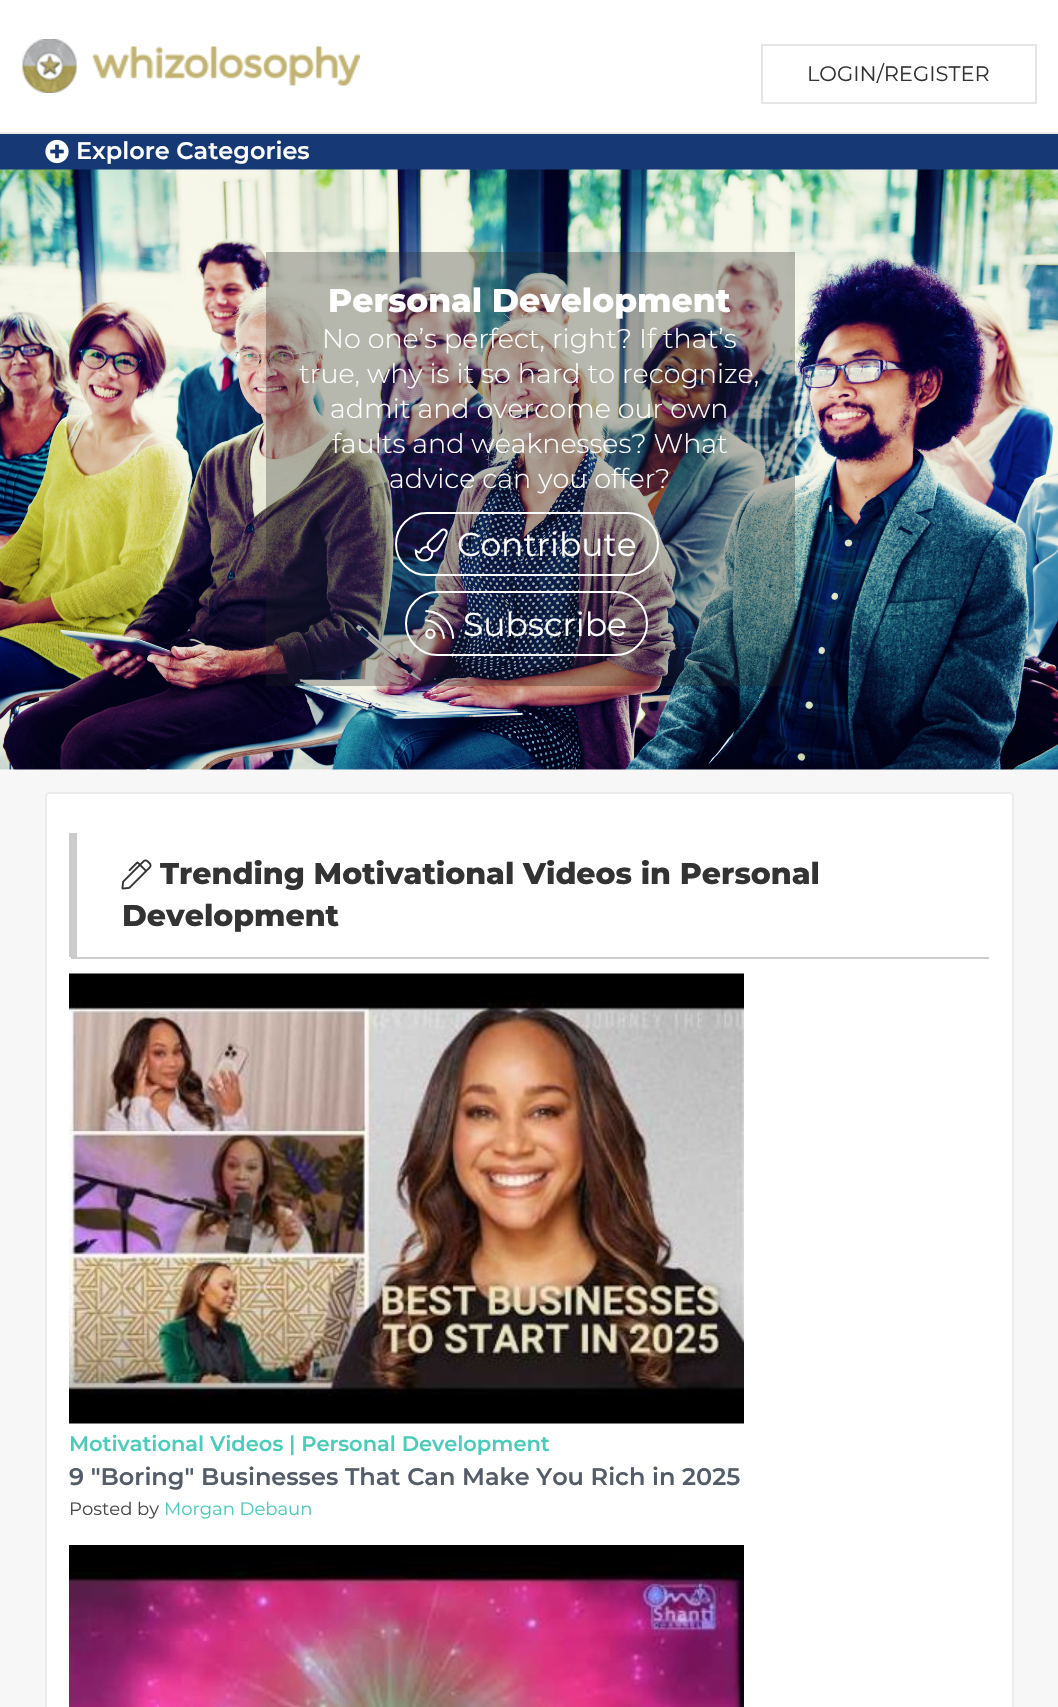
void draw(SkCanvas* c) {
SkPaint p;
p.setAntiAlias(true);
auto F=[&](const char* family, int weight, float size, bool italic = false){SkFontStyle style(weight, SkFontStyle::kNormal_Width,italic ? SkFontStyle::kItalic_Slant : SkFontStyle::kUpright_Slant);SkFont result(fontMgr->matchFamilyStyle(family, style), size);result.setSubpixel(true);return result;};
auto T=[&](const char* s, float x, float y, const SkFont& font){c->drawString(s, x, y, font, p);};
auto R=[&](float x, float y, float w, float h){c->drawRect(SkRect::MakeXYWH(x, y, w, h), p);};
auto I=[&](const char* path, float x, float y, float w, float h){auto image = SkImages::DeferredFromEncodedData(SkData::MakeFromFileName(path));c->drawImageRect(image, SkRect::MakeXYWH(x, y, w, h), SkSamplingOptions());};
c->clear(0xffffffff);
p.setColor(0xffececec);
R(0,132,1058,2);
I("1.png",22,39,338,54);
p.setStroke(true);
p.setStrokeWidth(2);
p.setColor(0xffe5e5e5);
c->drawRect(SkRect::MakeXYWH(762,45,274,58),p);
auto f1 = F("Montserrat",400,21);
p.setStroke(false);
p.setColor(0xff333333);
T("LOGIN/REGISTER",807,81,f1);
p.setColor(0xff163874);
R(0,134,1058,36);
I("2.png",45,139,24,25);
auto f2 = F("Montserrat",600,24);
p.setColor(0xffffffff);
T("Explore Categories",76,159,f2);
I("3.png",0,169,1058,601);
p.setColor(0x4d222222);
R(266,252,529,434);
auto f3 = F("Montserrat",800,33);
p.setColor(0xffffffff);
T("Personal Development",328,312,f3);
auto f4 = F("Montserrat",300,27);
T("No one’s perfect, right? If that’s",322,348,f4);
T("true, why is it so hard to recognize,",299,383,f4);
T("admit and overcome our own",330,418,f4);
T("faults and weaknesses? What",332,453,f4);
T("advice can you offer?",389,488,f4);
p.setStroke(true);
c->drawRoundRect(SkRect::MakeXYWH(396,513,262,62),31,31,p);
I("4.png",414,528,34,34);
auto f5 = F("Montserrat",400,33);
p.setStroke(false);
T("Contribute",457,556,f5);
p.setStroke(true);
c->drawRoundRect(SkRect::MakeXYWH(406,592,241,63),31.5,31.5,p);
I("5.png",425,610,30,29);
p.setStroke(false);
T("Subscribe",463,636,f5);
p.setColor(0xfff7f7f7);
R(0,770,1058,937);
p.setColor(0xffffffff);
c->drawRoundRect(SkRect::MakeXYWH(46,793,967,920),4,4,p);
p.setStroke(true);
p.setColor(0xffececec);
c->drawRoundRect(SkRect::MakeXYWH(46,793,967,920),4,4,p);
p.setStroke(false);
p.setColor(0xffcccccc);
R(71,957,918,2);
R(69,833,8,124);
I("6.png",121,859,31,31);
auto f6 = F("Montserrat",800,30);
p.setColor(0xff333333);
T("Trending Motivational Videos in Personal",160,884,f6);
T("Development",122,926,f6);
I("7.png",69,973,675,451);
auto f7 = F("Montserrat",600,21);
p.setColor(0xff4bccbb);
T("Motivational Videos | Personal Development",69,1451,f7);
p.setColor(0xff535c68);
T("9 \"Boring\" Businesses That Can Make You Rich in 2025",69,1485,f2);
auto f8 = F("Montserrat",400,18);
p.setColor(0xff4a4a4a);
T("Posted by",69,1515,f8);
p.setColor(0xff4bccbb);
T("Morgan Debaun",164,1515,f8);
I("8.png",69,1545,675,162);
}
